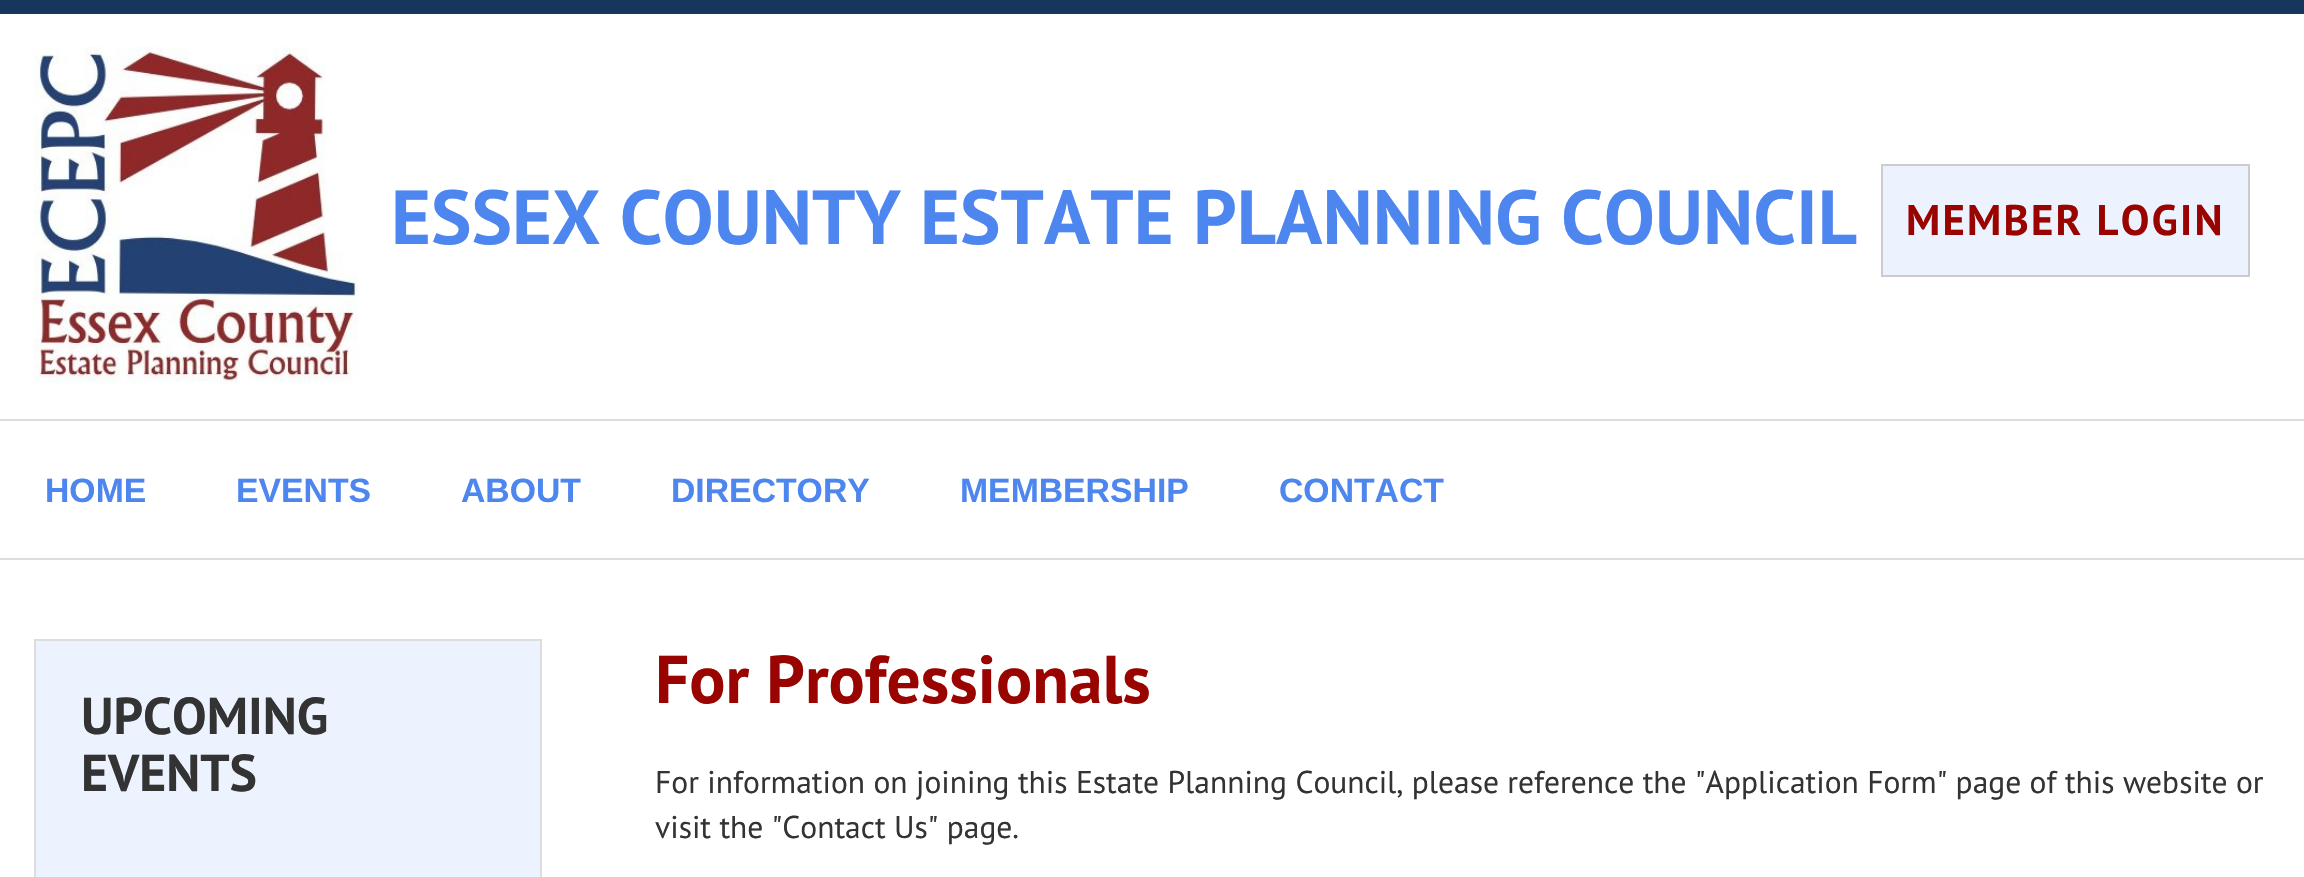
void draw(SkCanvas* c) {
SkPaint p;
p.setAntiAlias(true);
auto F=[&](const char* family, int weight, float size, bool italic = false){SkFontStyle style(weight, SkFontStyle::kNormal_Width,italic ? SkFontStyle::kItalic_Slant : SkFontStyle::kUpright_Slant);SkFont result(fontMgr->matchFamilyStyle(family, style), size);result.setSubpixel(true);return result;};
auto T=[&](const char* s, float x, float y, const SkFont& font){c->drawString(s, x, y, font, p);};
auto L=[&](const char* s, float x, float y, const SkFont& font, const SkPaint& ink, float letter, float word){std::vector<SkGlyphID> glyphs(font.countText(s, strlen(s), SkTextEncoding::kUTF8));std::vector<float> xs(glyphs.size());font.textToGlyphs(s, strlen(s), SkTextEncoding::kUTF8, glyphs);font.getXPos(glyphs, xs, x);float extra = 0;for (size_t i = 0; i < glyphs.size(); i++) {xs[i] += extra;extra += letter + word * (glyphs[i] == font.unicharToGlyph(' '));}c->drawTextBlob(SkTextBlob::MakeFromPosHGlyphs(glyphs, xs, y, font), 0, 0, ink);};
auto R=[&](float x, float y, float w, float h){c->drawRect(SkRect::MakeXYWH(x, y, w, h), p);};
auto I=[&](const char* path, float x, float y, float w, float h){auto image = SkImages::DeferredFromEncodedData(SkData::MakeFromFileName(path));c->drawImageRect(image, SkRect::MakeXYWH(x, y, w, h), SkSamplingOptions());};
c->clear(0xffffffff);
p.setColor(0xff16365d);
R(0,0,2304,14);
p.setColor(0xffdddddd);
R(0,419,2304,2);
I("1.png",33,47,325,337);
auto f1 = F("PT Sans",700,76.5);
p.setColor(0xff4d86ee);
T("ESSEX COUNTY ESTATE PLANNING COUNCIL",391,244,f1);
p.setColor(0xffecf3ff);
c->drawRect(SkRect::MakeXYWH(1882,165,367,111),p);
p.setStroke(true);
p.setStrokeWidth(2);
p.setColor(0xffcccccc);
c->drawRect(SkRect::MakeXYWH(1882,165,367,111),p);
auto f2 = F("PT Sans",700,42.75);
p.setStroke(false);
p.setColor(0xff990400);
L("MEMBER LOGIN",1906,235,f2,p,2.25,0);
p.setColor(0xffdddddd);
R(0,558,2304,2);
auto f3 = F("Liberation Sans",700,33.75);
p.setColor(0xff4d86ee);
T("HOME",45,502,f3);
T("EVENTS",236,502,f3);
T("ABOUT",461,502,f3);
T("DIRECTORY",671,502,f3);
T("MEMBERSHIP",960,502,f3);
T("CONTACT",1279,502,f3);
p.setColor(0xffecf3ff);
c->drawRect(SkRect::MakeXYWH(35,640,506,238),p);
p.setStroke(true);
p.setColor(0xffdddddd);
c->drawRect(SkRect::MakeXYWH(35,640,506,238),p);
auto f4 = F("PT Sans",700,51.75);
p.setStroke(false);
p.setColor(0xff333333);
T("UPCOMING",81,734,f4);
T("EVENTS",81,791,f4);
auto f5 = F("PT Sans",700,67.5);
p.setColor(0xff990400);
T("For Professionals",655,703,f5);
auto f6 = F("PT Sans",400,31.5);
p.setColor(0xff333333);
T("For information on joining this Estate Planning Council, please reference the \"Application Form\" page of this website or",655,793,f6);
T("visit the \"Contact Us\" page.",655,838,f6);
}
